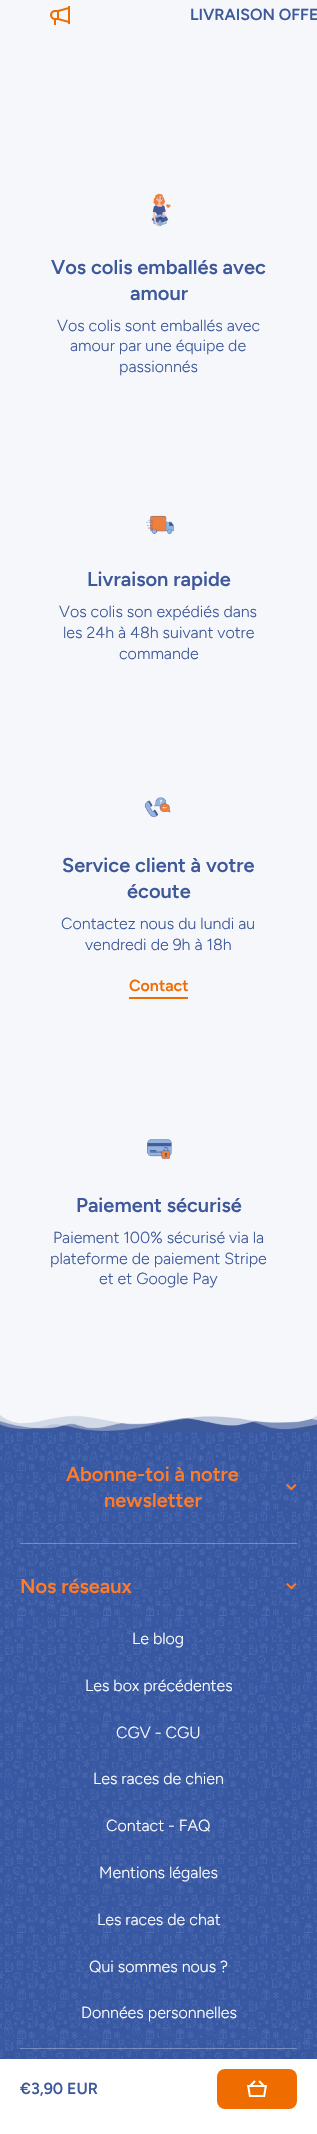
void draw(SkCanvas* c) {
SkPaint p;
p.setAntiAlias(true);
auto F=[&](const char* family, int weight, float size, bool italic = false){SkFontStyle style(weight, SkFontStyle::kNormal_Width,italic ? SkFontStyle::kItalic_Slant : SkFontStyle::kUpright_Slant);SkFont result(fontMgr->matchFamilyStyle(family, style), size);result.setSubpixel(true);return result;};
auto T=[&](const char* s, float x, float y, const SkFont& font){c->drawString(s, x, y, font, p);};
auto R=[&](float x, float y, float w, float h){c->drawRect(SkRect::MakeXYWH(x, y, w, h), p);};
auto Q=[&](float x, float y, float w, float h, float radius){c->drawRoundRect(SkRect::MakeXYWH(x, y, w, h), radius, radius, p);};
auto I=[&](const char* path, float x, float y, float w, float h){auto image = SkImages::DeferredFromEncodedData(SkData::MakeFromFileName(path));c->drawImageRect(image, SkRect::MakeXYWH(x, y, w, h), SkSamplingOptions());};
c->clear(0xfff6f7fa);
I("1.png",50,6,20,19);
auto f1 = F("Figtree",600,16);
p.setColor(0xff3d599b);
T("LIVRAISON OFFE",190,20,f1);
I("2.png",151,193,20,34);
auto f2 = F("Figtree",600,20);
T("Vos colis emballés avec",51,274,f2);
T("amour",130,300,f2);
auto f3 = F("Figtree",300,16);
T("Vos colis sont emballés avec",57,331,f3);
T("amour par une équipe de",70,351,f3);
T("passionnés",119,372,f3);
I("3.png",146,515,28,19);
T("Livraison rapide",87,586,f2);
T("Vos colis son expédiés dans",59,617,f3);
T("les 24h à 48h suivant votre",63,638,f3);
T("commande",119,659,f3);
I("4.png",144,797,27,21);
T("Service client à votre",62,872,f2);
T("écoute",127,898,f2);
T("Contactez nous du lundi au",61,929,f3);
T("vendredi de 9h à 18h",85,950,f3);
p.setColor(0xffef6c00);
T("Contact",129,991,f1);
R(129,997,59,2);
I("5.png",147,1139,25,21);
p.setColor(0xff3d599b);
T("Paiement sécurisé",76,1212,f2);
T("Paiement 100% sécurisé via la",53,1243,f3);
T("plateforme de paiement Stripe",50,1264,f3);
T("et et Google Pay",99,1284,f3);
I("6.png",0,1415,317,16);
I("7.png",0,1431,317,628);
p.setColor(0xffff7b26);
T("Abonne-toi à notre",66,1481,f2);
T("newsletter",104,1507,f2);
I("8.png",286,1484,11,7);
p.setColor(0x4dffffff);
R(20,1543,277,1);
p.setColor(0xffff7b26);
T("Nos réseaux",20,1593,f2);
I("9.png",286,1583,11,7);
p.setColor(0xffffffff);
T("Le blog",132,1644,f3);
T("Les box précédentes",85,1691,f3);
T("CGV - CGU",116,1738,f3);
T("Les races de chien",93,1784,f3);
T("Contact - FAQ",106,1831,f3);
T("Mentions légales",99,1878,f3);
T("Les races de chat",97,1925,f3);
T("Qui sommes nous ?",89,1972,f3);
T("Données personnelles",81,2018,f3);
p.setColor(0x4dffffff);
R(20,2048,277,1);
p.setColor(0x21161345);
p.setMaskFilter(SkMaskFilter::MakeBlur(kNormal_SkBlurStyle, 10));
c->drawRect(SkRect::MakeXYWH(0,2063,317,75),p);
p.setMaskFilter(nullptr);
p.setColor(0xffffffff);
R(0,2059,317,75);
p.setColor(0xff3d599b);
T("€3,90 EUR",20,2094,f1);
p.setColor(0xffef6c00);
Q(217,2069,80,40,8);
I("10.png",247,2080,20,17);
}
